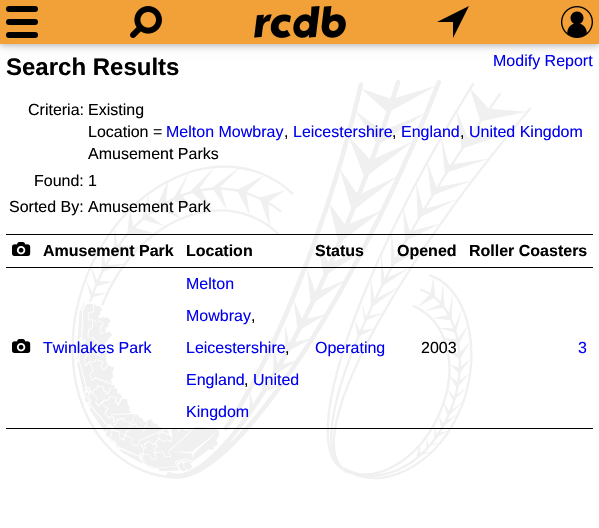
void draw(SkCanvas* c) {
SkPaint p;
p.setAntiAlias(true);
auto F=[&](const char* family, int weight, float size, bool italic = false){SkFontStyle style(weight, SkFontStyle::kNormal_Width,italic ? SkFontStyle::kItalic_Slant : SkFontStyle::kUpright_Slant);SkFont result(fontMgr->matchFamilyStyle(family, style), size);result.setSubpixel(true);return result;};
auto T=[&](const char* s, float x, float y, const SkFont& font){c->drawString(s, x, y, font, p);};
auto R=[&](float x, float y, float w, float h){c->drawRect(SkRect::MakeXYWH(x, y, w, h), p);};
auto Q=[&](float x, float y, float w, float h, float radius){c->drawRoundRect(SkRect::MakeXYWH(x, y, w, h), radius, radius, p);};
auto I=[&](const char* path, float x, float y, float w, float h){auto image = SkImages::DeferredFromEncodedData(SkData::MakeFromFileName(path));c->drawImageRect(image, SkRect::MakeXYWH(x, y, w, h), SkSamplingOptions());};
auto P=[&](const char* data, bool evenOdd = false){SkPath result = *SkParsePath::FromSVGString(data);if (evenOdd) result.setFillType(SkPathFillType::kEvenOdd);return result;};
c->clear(0xffffffff);
p.setColor(0x1f000000);
p.setMaskFilter(SkMaskFilter::MakeBlur(kNormal_SkBlurStyle, 5));
c->drawRect(SkRect::MakeXYWH(0,2,599,44),p);
p.setMaskFilter(nullptr);
p.setColor(0x29000000);
p.setMaskFilter(SkMaskFilter::MakeBlur(kNormal_SkBlurStyle, 2.5));
c->drawRect(SkRect::MakeXYWH(0,2,599,44),p);
p.setMaskFilter(nullptr);
p.setColor(0xfff2a139);
R(0,0,599,44);
p.setColor(0xff000000);
Q(6,6,32,6,3);
Q(6,19,32,6,3);
Q(6,32,32,6,3);
I("1.png",130,6,32,32);
I("2.png",254,6,92,32);
c->drawPath(P("M469 6l-16 32v-16h-16z"),p);
I("3.png",561,6,32,32);
auto f1 = F("Liberation Sans",700,24);
T("Search Results",6,75,f1);
auto f2 = F("Liberation Sans",400,16);
p.setColor(0xff0000ee);
T("Modify Report",493,66,f2);
I("5.png",71,80,461,400);
p.setColor(0xff000000);
T("Criteria:",28,115,f2);
T("Existing",88,115,f2);
T("Location =",88,137,f2);
p.setColor(0xff0000ee);
T("Melton Mowbray",166,137,f2);
p.setColor(0xff000000);
T(",",284,137,f2);
p.setColor(0xff0000ee);
T("Leicestershire",293,137,f2);
p.setColor(0xff000000);
T(",",392,137,f2);
p.setColor(0xff0000ee);
T("England",401,137,f2);
p.setColor(0xff000000);
T(",",460,137,f2);
p.setColor(0xff0000ee);
T("United Kingdom",469,137,f2);
p.setColor(0xff000000);
T("Amusement Parks",88,159,f2);
T("Found:",34,186,f2);
T("1",88,186,f2);
T("Sorted By:",9,212,f2);
T("Amusement Park",88,212,f2);
R(6,234,587,1);
R(6,267,587,1);
I("4.png",12,242,19,14);
auto f3 = F("Liberation Sans",700,16);
T("Amusement Park",43,256,f3);
T("Location",186,256,f3);
T("Status",315,256,f3);
T("Opened",397,256,f3);
T("Roller Coasters",469,256,f3);
p.setColor(0xff0000ee);
T("Melton",186,289,f2);
T("Mowbray",186,321,f2);
p.setColor(0xff000000);
T(",",251,321,f2);
p.setColor(0xff0000ee);
T("Leicestershire",186,353,f2);
p.setColor(0xff000000);
T(",",285,353,f2);
p.setColor(0xff0000ee);
T("England",186,385,f2);
p.setColor(0xff000000);
T(",",244,385,f2);
p.setColor(0xff0000ee);
T("United",253,385,f2);
T("Kingdom",186,417,f2);
p.setColor(0xff000000);
R(6,428,587,1);
I("4.png",12,339,19,14);
p.setColor(0xff0000ee);
T("Twinlakes Park",43,353,f2);
T("Operating",315,353,f2);
p.setColor(0xff000000);
T("2003",421,353,f2);
p.setColor(0xff0000ee);
T("3",578,353,f2);
}
